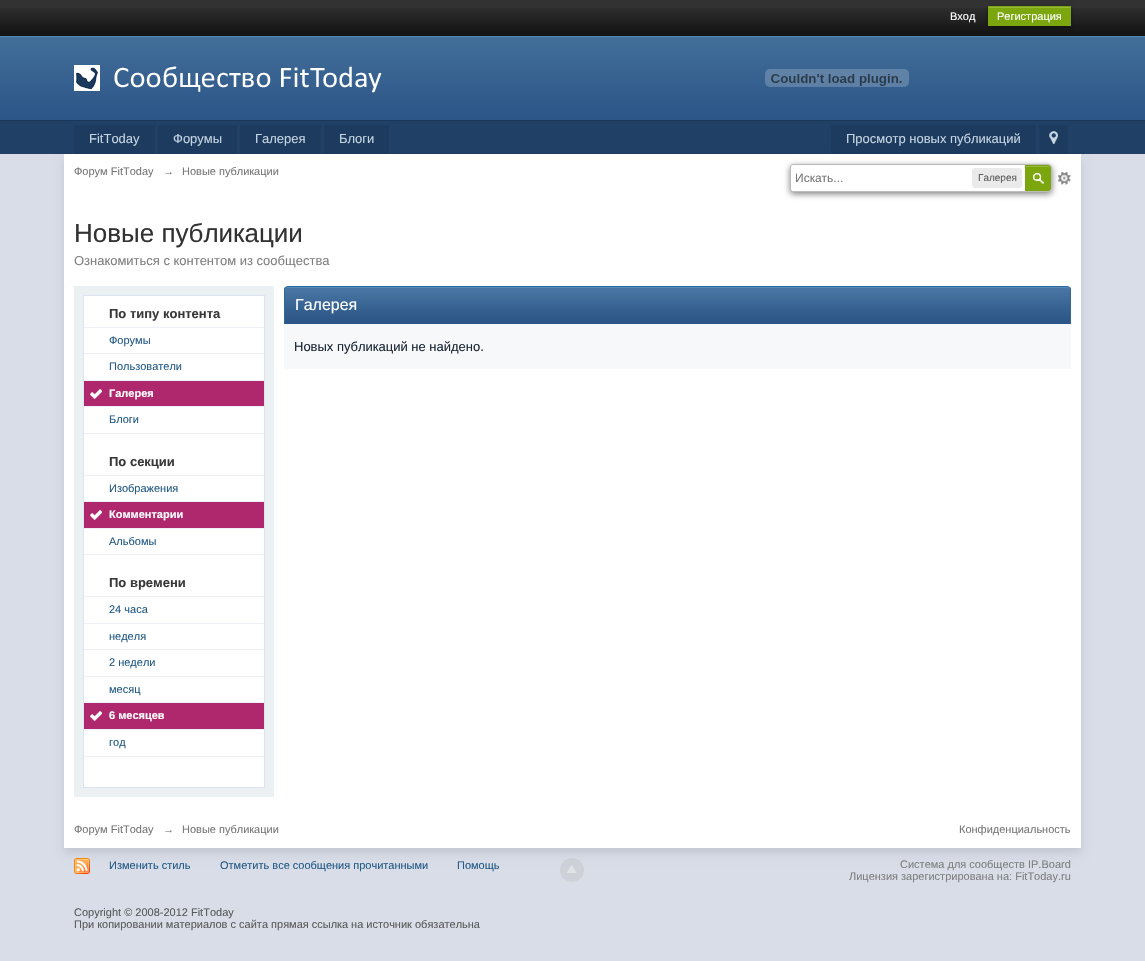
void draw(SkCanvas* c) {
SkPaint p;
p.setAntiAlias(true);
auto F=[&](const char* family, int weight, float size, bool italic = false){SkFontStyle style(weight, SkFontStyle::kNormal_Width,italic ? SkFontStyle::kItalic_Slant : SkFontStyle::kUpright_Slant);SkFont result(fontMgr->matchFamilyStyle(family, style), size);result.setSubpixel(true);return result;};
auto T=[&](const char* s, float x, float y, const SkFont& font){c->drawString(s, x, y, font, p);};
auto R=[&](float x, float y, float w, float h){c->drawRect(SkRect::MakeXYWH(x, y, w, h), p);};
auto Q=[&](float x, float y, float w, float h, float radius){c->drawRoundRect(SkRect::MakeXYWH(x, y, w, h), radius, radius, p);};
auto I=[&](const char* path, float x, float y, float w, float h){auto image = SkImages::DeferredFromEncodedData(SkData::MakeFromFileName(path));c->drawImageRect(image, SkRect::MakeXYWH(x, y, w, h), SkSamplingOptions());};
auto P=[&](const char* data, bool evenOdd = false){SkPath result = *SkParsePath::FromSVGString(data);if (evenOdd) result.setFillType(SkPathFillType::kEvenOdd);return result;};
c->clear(0xffd8dde8);
p.setColor(0xff323232);
R(0,0,1145,8);
I("1.png",0,8,1145,28);
auto f1 = F("Liberation Sans",400,11);
p.setColor(0xffffffff);
T("Вход",950,20,f1);
p.setColor(0x66000000);
p.setMaskFilter(SkMaskFilter::MakeBlur(kNormal_SkBlurStyle, 2));
c->drawRect(SkRect::MakeXYWH(988,7,83,20),p);
p.setMaskFilter(nullptr);
p.setColor(0xff7ba60d);
R(988,6,83,20);
p.setColor(0xff95b83d);
R(989,7,81,1);
p.setColor(0xffffffff);
T("Регистрация",997,20,f1);
I("2.png",0,36,1145,84);
p.setColor(0xff1b3759);
R(0,120,1145,1);
I("3.png",74,65,308,28);
I("4.png",765,69,144,18);
p.setColor(0xff204066);
R(0,121,1145,33);
p.setColor(0x1a000000);
p.setMaskFilter(SkMaskFilter::MakeBlur(kNormal_SkBlurStyle, 4.5));
c->drawRect(SkRect::MakeXYWH(64,159,1017,694),p);
p.setMaskFilter(nullptr);
p.setColor(0xff1c3b5f);
R(74,125,81,29);
auto f2 = F("Liberation Sans",400,13);
p.setColor(0xffc5d5e2);
T("FitToday",89,143,f2);
p.setColor(0xff1c3b5f);
R(158,125,79,29);
p.setColor(0xffc5d5e2);
T("Форумы",173,143,f2);
p.setColor(0xff1c3b5f);
R(240,125,81,29);
p.setColor(0xffc5d5e2);
T("Галерея",255,143,f2);
p.setColor(0xff1c3b5f);
R(324,125,65,29);
p.setColor(0xffc5d5e2);
T("Блоги",339,143,f2);
p.setColor(0xff1c3b5f);
R(831,125,205,29);
p.setColor(0xffc5d5e2);
T("Просмотр новых публикаций",846,143,f2);
p.setColor(0xff1c3b5f);
R(1039,125,29,29);
I("5.png",1049,131,9,13);
p.setColor(0xffffffff);
R(64,154,1017,694);
p.setColor(0xff777777);
T("Форум FitToday",74,175,f1);
T("→",163,175,f1);
T("Новые публикации",182,175,f1);
I("7.png",1058,172,13,13);
p.setColor(0x80000000);
p.setMaskFilter(SkMaskFilter::MakeBlur(kNormal_SkBlurStyle, 3));
c->drawRoundRect(SkRect::MakeXYWH(790,166,262,28),4,4,p);
p.setMaskFilter(nullptr);
p.setColor(0xffffffff);
c->drawPath(P("M793 164.5h255c2 0 3.5 1.5 3.5 3.5v20c0 2-1.5 3.5-3.5 3.5h-255c-1.5 0-2.5-1-2.5-2.5v-22c0-1.5 1-2.5 2.5-2.5z"),p);
p.setStroke(true);
p.setStrokeWidth(1);
p.setColor(0xffbcbcbc);
c->drawPath(P("M793 164.5h255c2 0 3.5 1.5 3.5 3.5v20c0 2-1.5 3.5-3.5 3.5h-255c-1.5 0-2.5-1-2.5-2.5v-22c0-1.5 1-2.5 2.5-2.5z"),p);
auto f3 = F("Liberation Sans",400,12);
p.setStroke(false);
p.setColor(0xff777777);
T("Искать...",795,182,f3);
p.setColor(0xffeaeaea);
Q(972,168,50,20,3);
auto f4 = F("Liberation Sans",400,10);
p.setColor(0xff5a5a5a);
T("Галерея",978,181,f4);
p.setColor(0xff7ba60d);
c->drawPath(P("M1025 165h23c1.5 0 3 1.5 3 3v20c0 1.5-1.5 3-3 3h-23z"),p);
I("6.png",1033,173,11,11);
p.setColor(0xff95b83d);
c->drawPath(P("M1026 167h22c1 0 2 1 2 2v-1c0-1-1-2-2-2h-22z"),p);
p.setStroke(true);
p.setColor(0xff7ba60d);
c->drawPath(P("M1025.5 165.5h22.5c1.5 0 2.5 1 2.5 2.5v20c0 1.5-1 2.5-2.5 2.5h-22.5z"),p);
auto f5 = F("Liberation Sans",400,26);
p.setStroke(false);
p.setColor(0xff323232);
T("Новые публикации",74,242,f5);
p.setColor(0xff7f7f7f);
T("Ознакомиться с контентом из сообщества",74,265,f2);
p.setColor(0xffebf0f3);
R(74,286,200,511);
p.setColor(0xffffffff);
c->drawRect(SkRect::MakeXYWH(83.5,295.5,181,492),p);
p.setStroke(true);
p.setColor(0xffdbe4ef);
c->drawRect(SkRect::MakeXYWH(83.5,295.5,181,492),p);
auto f6 = F("Liberation Sans",700,13);
p.setStroke(false);
p.setColor(0xff383838);
T("По типу контента",109,318,f6);
p.setColor(0xffedf1f5);
R(84,327,180,1);
R(84,353,180,1);
p.setColor(0xff225985);
T("Форумы",109,344,f1);
p.setColor(0xffedf1f5);
R(84,380,180,1);
p.setColor(0xff225985);
T("Пользователи",109,370,f1);
p.setColor(0xffedf1f5);
R(84,406,180,1);
p.setColor(0xffaf286d);
R(84,381,180,25);
I("8.png",90,389,12,10);
auto f7 = F("Liberation Sans",700,11);
p.setColor(0xffffffff);
T("Галерея",109,397,f7);
p.setColor(0xffedf1f5);
R(84,433,180,1);
p.setColor(0xff225985);
T("Блоги",109,423,f1);
p.setColor(0xff383838);
T("По секции",109,466,f6);
p.setColor(0xffedf1f5);
R(84,475,180,1);
R(84,501,180,1);
p.setColor(0xff225985);
T("Изображения",109,492,f1);
p.setColor(0xffedf1f5);
R(84,528,180,1);
p.setColor(0xffaf286d);
R(84,502,180,26);
I("8.png",90,510,12,10);
p.setColor(0xffffffff);
T("Комментарии",109,518,f7);
p.setColor(0xffedf1f5);
R(84,554,180,1);
p.setColor(0xff225985);
T("Альбомы",109,545,f1);
p.setColor(0xff383838);
T("По времени",109,587,f6);
p.setColor(0xffedf1f5);
R(84,596,180,1);
R(84,623,180,1);
p.setColor(0xff225985);
T("24 часа",109,613,f1);
p.setColor(0xffedf1f5);
R(84,649,180,1);
p.setColor(0xff225985);
T("неделя",109,640,f1);
p.setColor(0xffedf1f5);
R(84,676,180,1);
p.setColor(0xff225985);
T("2 недели",109,666,f1);
p.setColor(0xffedf1f5);
R(84,702,180,1);
p.setColor(0xff225985);
T("месяц",109,693,f1);
p.setColor(0xffedf1f5);
R(84,729,180,1);
p.setColor(0xffaf286d);
R(84,703,180,26);
I("8.png",90,711,12,10);
p.setColor(0xffffffff);
T("6 месяцев",109,719,f7);
p.setColor(0xffedf1f5);
R(84,756,180,1);
p.setColor(0xff225985);
T("год",109,746,f1);
p.setColor(0xff2c5687);
R(285,322,785,2);
I("9.png",284,287,787,35);
p.setColor(0xff528cbc);
c->drawPath(P("M288 288h779c2 0 3 1 3 3c0-2-1-4-3-4h-779c-2 0-3 2-3 4c0-2 1-3 3-3z"),p);
p.setColor(0xff316897);
c->drawPath(P("M288 286h779c2 0 4 2 4 4v34h-787v-34c0-2 2-4 4-4zm0 1h779c2 0 3 1 3 3v34h-785v-34c0-2 1-3 3-3z",true),p);
auto f8 = F("Liberation Sans",400,16);
p.setColor(0xffffffff);
T("Галерея",295,310,f8);
p.setColor(0xfff6f8fa);
R(284,324,787,45);
p.setColor(0xff1c2837);
T("Новых публикаций не найдено.",294,351,f2);
p.setColor(0xff777777);
T("Форум FitToday",74,833,f1);
T("→",163,833,f1);
T("Новые публикации",182,833,f1);
T("Конфиденциальность",959,833,f1);
I("10.png",74,858,16,16);
p.setColor(0xff225985);
T("Изменить стиль",109,869,f1);
T("Отметить все сообщения прочитанными",220,869,f1);
T("Помощь",457,869,f1);
p.setColor(0x66bdbdbd);
c->drawCircle(572,870,12,p);
I("11.png",567,865,10,8);
p.setColor(0xff7f7f7f);
T("Система для сообществ IP.Board",900,868,f1);
T("Лицензия зарегистрирована на: FitToday.ru",849,880,f1);
p.setColor(0xff5a5a5a);
T("Copyright © 2008-2012 FitToday",74,916,f1);
T("При копировании материалов с сайта прямая ссылка на источник обязательна",74,928,f1);
}
